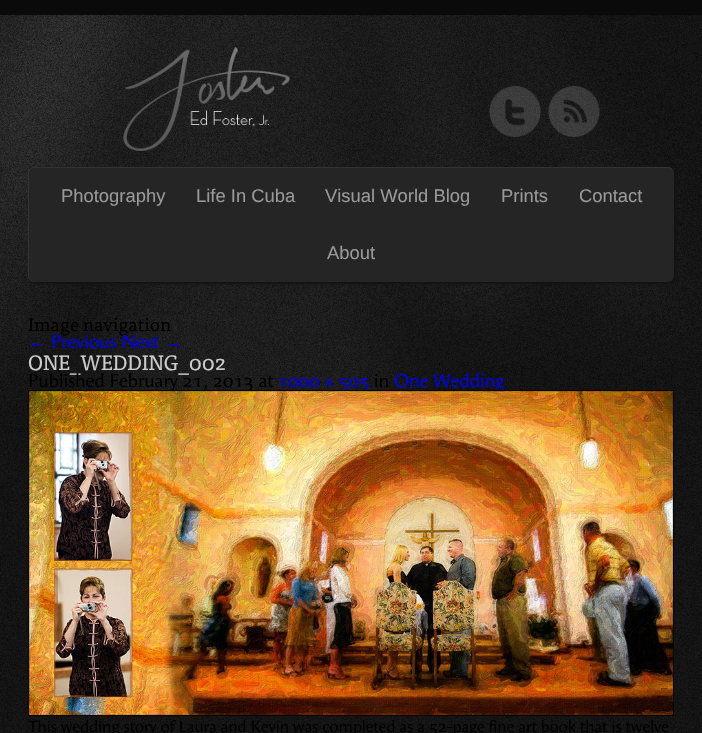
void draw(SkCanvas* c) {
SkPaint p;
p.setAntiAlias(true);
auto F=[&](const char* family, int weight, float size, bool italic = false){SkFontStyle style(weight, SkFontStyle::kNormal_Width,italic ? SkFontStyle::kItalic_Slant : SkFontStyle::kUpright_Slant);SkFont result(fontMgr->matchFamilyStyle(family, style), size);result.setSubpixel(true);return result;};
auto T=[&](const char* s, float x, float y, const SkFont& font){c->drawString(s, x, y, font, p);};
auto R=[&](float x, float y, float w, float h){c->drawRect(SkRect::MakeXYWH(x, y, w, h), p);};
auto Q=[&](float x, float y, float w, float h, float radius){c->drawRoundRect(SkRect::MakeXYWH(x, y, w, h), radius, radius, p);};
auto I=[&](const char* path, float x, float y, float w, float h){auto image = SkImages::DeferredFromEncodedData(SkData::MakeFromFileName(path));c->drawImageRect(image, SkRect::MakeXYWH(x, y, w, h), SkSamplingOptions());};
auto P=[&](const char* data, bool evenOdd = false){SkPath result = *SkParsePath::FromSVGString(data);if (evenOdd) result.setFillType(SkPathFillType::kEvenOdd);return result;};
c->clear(0xffffffff);
I("1.png",0,15,702,718);
p.setColor(0xff0a0a0a);
R(0,0,702,15);
I("2.png",489,86,52,51);
I("3.png",548,86,52,51);
I("4.png",123,47,167,104);
p.setColor(0xff111111);
p.setMaskFilter(SkMaskFilter::MakeBlur(kNormal_SkBlurStyle, 1.5));
c->drawRoundRect(SkRect::MakeXYWH(30,169,646,115),6,6,p);
p.setMaskFilter(nullptr);
p.setColor(0xff252525);
Q(28,167,646,115,6);
p.setColor(0xff333333);
c->drawPath(P("M34 167h634c3 0 6 3 6 6v103c0 3-3 6-6 6h-634c-3 0-6-3-6-6v-103c0-3 3-6 6-6zm0 1h634c3 0 6 2 6 5v103c0 3-3 6-6 6h-634c-3 0-5-3-5-6v-103c0-3 2-5 5-5z",true),p);
auto f1 = F("Liberation Sans",400,18.4);
p.setColor(0xff999999);
T("Photography",61,202,f1);
T("Life In Cuba",196,202,f1);
T("Visual World Blog",325,202,f1);
T("Prints",501,202,f1);
T("Contact",579,202,f1);
T("About",327,259,f1);
auto f2 = F("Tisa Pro",400,18.4);
p.setColor(0xff000000);
T("Image navigation",28,331,f2);
p.setColor(0xff0000ee);
T("←",28,348,f1);
auto f3 = F("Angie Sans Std",400,18.4);
T("Previous Next",51,348,f3);
T("→",164,348,f1);
auto f4 = F("Tisa Pro",400,20.75);
p.setColor(0xffcccccc);
T("ONE_WEDDING_002",28,370,f4);
p.setColor(0xff000000);
T("Published February 21, 2013 at",28,387,f3);
p.setColor(0xff0000ee);
T("1000 × 505",278,387,f3);
p.setColor(0xff000000);
T("in",374,387,f3);
p.setColor(0xff0000ee);
T("One Wedding",394,387,f3);
I("5.png",28,390,646,326);
auto f5 = F("Angie Sans Std",400,16.1);
p.setColor(0xff000000);
T("This wedding story of Laura and Kevin was completed as a 52-page fine art book that is twelve",28,732,f5);
}
